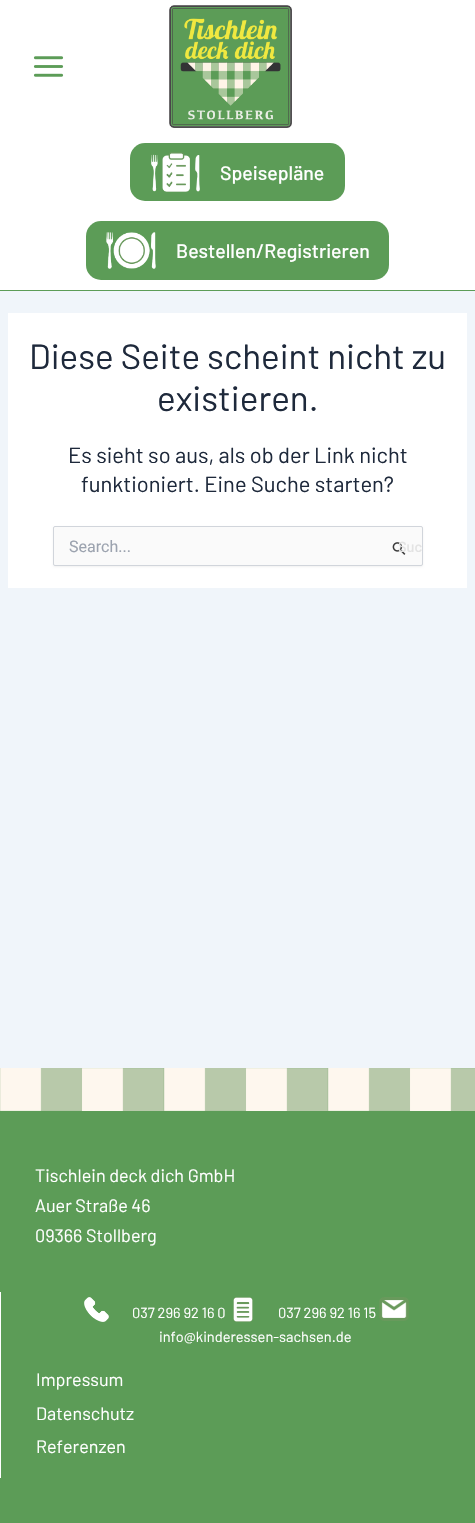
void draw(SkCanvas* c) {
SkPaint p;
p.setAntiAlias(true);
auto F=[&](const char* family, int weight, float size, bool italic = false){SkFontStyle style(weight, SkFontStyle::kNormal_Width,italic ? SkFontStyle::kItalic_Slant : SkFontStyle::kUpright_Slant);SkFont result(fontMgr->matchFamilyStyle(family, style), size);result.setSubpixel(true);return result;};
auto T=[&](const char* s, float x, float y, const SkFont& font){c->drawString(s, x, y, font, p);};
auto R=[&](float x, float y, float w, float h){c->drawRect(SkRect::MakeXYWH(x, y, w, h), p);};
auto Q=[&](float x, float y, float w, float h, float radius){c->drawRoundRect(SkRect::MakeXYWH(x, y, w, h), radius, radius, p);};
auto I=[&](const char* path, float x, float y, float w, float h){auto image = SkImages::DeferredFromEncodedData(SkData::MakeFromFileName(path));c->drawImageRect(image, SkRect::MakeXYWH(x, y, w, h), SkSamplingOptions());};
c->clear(0xfff0f5fa);
p.setColor(0xffffffff);
R(0,0,475,290);
I("1.png",33,56,31,21);
I("2.png",169,5,123,123);
p.setColor(0xff5c9c57);
R(0,290,475,1);
Q(130,143,215,58,15);
I("3.png",151,152,49,40);
auto f1 = F("Barlow",500,19.5);
p.setColor(0xffffffff);
T("Speisepläne",220,180,f1);
p.setColor(0xff5c9c57);
Q(86,221,303,59,15);
I("4.png",106,232,50,37);
p.setColor(0xffffffff);
T("Bestellen/Registrieren",176,258,f1);
R(8,313,459,275);
auto f2 = F("Barlow",400,35);
p.setColor(0xff1e293b);
T("Diese Seite scheint nicht zu",29,369,f2);
T("existieren.",157,411,f2);
auto f3 = F("Barlow",400,21.9);
T("Es sieht so aus, als ob der Link nicht",68,463,f3);
T("funktioniert. Eine Suche starten?",81,492,f3);
p.setColor(0x0d000000);
p.setMaskFilter(SkMaskFilter::MakeBlur(kNormal_SkBlurStyle, 1));
c->drawRoundRect(SkRect::MakeXYWH(53,527,370,40),2,2,p);
p.setMaskFilter(nullptr);
p.setColor(0xfffafafa);
c->drawRoundRect(SkRect::MakeXYWH(53.5,526.5,369,39),1.5,1.5,p);
p.setStroke(true);
p.setStrokeWidth(1);
p.setColor(0xffd1d5db);
c->drawRoundRect(SkRect::MakeXYWH(53.5,526.5,369,39),1.5,1.5,p);
auto f4 = F("Roboto",400,16);
p.setStroke(false);
p.setColor(0xff9ca3af);
T("Search...",69,552,f4);
I("5.png",392,542,14,13);
auto f5 = F("Barlow",500,14.6);
p.setColor(0xffe3e3e3);
T("Suc",398,552,f5);
p.setColor(0xff5c9c57);
R(0,1068,475,455);
I("6.png",0,1068,475,43);
auto f6 = F("Barlow",400,18);
p.setColor(0xffffffff);
T("Tischlein deck dich GmbH",35,1182,f6);
T("Auer Straße 46",35,1212,f6);
T("09366 Stollberg",35,1242,f6);
R(0,1292,1,186);
I("7.png",84,1297,25,25);
auto f7 = F("Barlow",400,14.6);
T("037 296 92 16 0",132,1318,f7);
I("8.png",233,1297,20,25);
T("037 296 92 16 15",278,1318,f7);
I("9.png",379,1297,30,24);
T("info@kinderessen-sachsen.de",159,1342,f7);
T("Impressum",36,1386,f6);
T("Datenschutz",36,1420,f6);
T("Referenzen",36,1453,f6);
}
